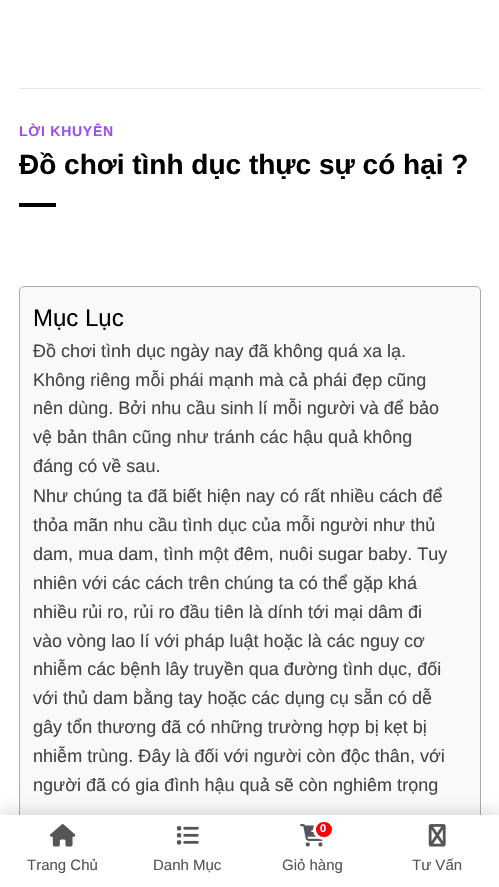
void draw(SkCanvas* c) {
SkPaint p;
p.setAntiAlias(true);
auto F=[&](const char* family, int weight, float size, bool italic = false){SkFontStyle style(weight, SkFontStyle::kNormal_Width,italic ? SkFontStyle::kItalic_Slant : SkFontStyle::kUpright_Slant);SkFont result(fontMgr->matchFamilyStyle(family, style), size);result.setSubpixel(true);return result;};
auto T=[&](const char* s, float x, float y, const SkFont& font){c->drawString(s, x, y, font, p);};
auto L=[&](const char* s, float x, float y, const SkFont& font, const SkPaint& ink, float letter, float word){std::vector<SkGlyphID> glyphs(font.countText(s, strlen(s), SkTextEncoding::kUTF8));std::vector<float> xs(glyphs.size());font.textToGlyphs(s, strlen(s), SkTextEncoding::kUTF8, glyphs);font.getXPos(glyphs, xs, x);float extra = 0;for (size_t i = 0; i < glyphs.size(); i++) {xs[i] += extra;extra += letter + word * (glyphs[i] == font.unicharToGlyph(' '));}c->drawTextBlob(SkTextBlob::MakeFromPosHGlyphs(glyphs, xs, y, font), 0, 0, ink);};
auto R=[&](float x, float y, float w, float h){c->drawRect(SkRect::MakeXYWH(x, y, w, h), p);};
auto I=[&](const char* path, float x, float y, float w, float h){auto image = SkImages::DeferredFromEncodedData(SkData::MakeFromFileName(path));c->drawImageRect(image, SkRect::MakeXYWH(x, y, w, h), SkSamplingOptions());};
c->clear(0xffffffff);
p.setColor(0xffe6e6e6);
R(19,88,462,1);
auto f1 = F("Liberation Sans",700,14);
p.setColor(0xff9b50e9);
L("LỜI KHUYÊN",19,136,f1,p,.75,0);
auto f2 = F("Liberation Sans",700,28);
p.setColor(0xff000000);
T("Đồ chơi tình dục thực sự có hại ?",19,174,f2);
R(19,203,37,4);
p.setColor(0xfff9f9f9);
c->drawRoundRect(SkRect::MakeXYWH(19.5,286.5,461,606),4.5,4.5,p);
p.setStroke(true);
p.setStrokeWidth(1);
p.setColor(0xffaaaaaa);
c->drawRoundRect(SkRect::MakeXYWH(19.5,286.5,461,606),4.5,4.5,p);
auto f3 = F("Liberation Sans",400,24);
p.setStroke(false);
p.setColor(0xff000000);
T("Mục Lục",33,326,f3);
auto f4 = F("Liberation Sans",400,18.05);
p.setColor(0xff444444);
T("Đồ chơi tình dục ngày nay đã không quá xa lạ.",33,357,f4);
T("Không riêng mỗi phái mạnh mà cả phái đẹp cũng",33,386,f4);
T("nên dùng. Bởi nhu cầu sinh lí mỗi người và để bảo",33,414,f4);
T("vệ bản thân cũng như tránh các hậu quả không",33,443,f4);
T("đáng có về sau.",33,472,f4);
T("Như chúng ta đã biết hiện nay có rất nhiều cách để",33,502,f4);
T("thỏa mãn nhu cầu tình dục của mỗi người như thủ",33,531,f4);
T("dam, mua dam, tình một đêm, nuôi sugar baby. Tuy",33,560,f4);
T("nhiên với các cách trên chúng ta có thể gặp khá",33,589,f4);
T("nhiều rủi ro, rủi ro đầu tiên là dính tới mại dâm đi",33,618,f4);
T("vào vòng lao lí với pháp luật hoặc là các nguy cơ",33,647,f4);
T("nhiễm các bệnh lây truyền qua đường tình dục, đối",33,675,f4);
T("với thủ dam bằng tay hoặc các dụng cụ sẵn có dễ",33,704,f4);
T("gây tổn thương đã có những trường hợp bị kẹt bị",33,733,f4);
T("nhiễm trùng. Đây là đối với người còn độc thân, với",33,762,f4);
T("người đã có gia đình hậu quả sẽ còn nghiêm trọng",33,791,f4);
p.setColor(0x1a000000);
p.setMaskFilter(SkMaskFilter::MakeBlur(kNormal_SkBlurStyle, 6));
c->drawRect(SkRect::MakeXYWH(0,809,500,72),p);
p.setMaskFilter(nullptr);
p.setColor(0xffffffff);
R(0,815,499,72);
I("1.png",50,824,26,23);
auto f5 = F("Liberation Sans",400,15);
p.setColor(0xff555555);
T("Trang Chủ",27,870,f5);
I("2.png",176,826,23,19);
T("Danh Mục",153,870,f5);
I("3.png",300,824,23,23);
p.setColor(0xffff0000);
c->drawRoundRect(SkRect::MakeXYWH(314.5,820.5,19,18),9,9,p);
p.setStroke(true);
p.setStrokeWidth(3);
p.setColor(0xffffffff);
c->drawRoundRect(SkRect::MakeXYWH(314.5,820.5,19,18),9,9,p);
auto f6 = F("Liberation Sans",700,11);
p.setStroke(false);
T("0",320,832,f6);
p.setColor(0xff555555);
T("Giỏ hàng",282,870,f5);
I("4.png",428,824,18,23);
T("Tư Vấn",412,870,f5);
}
